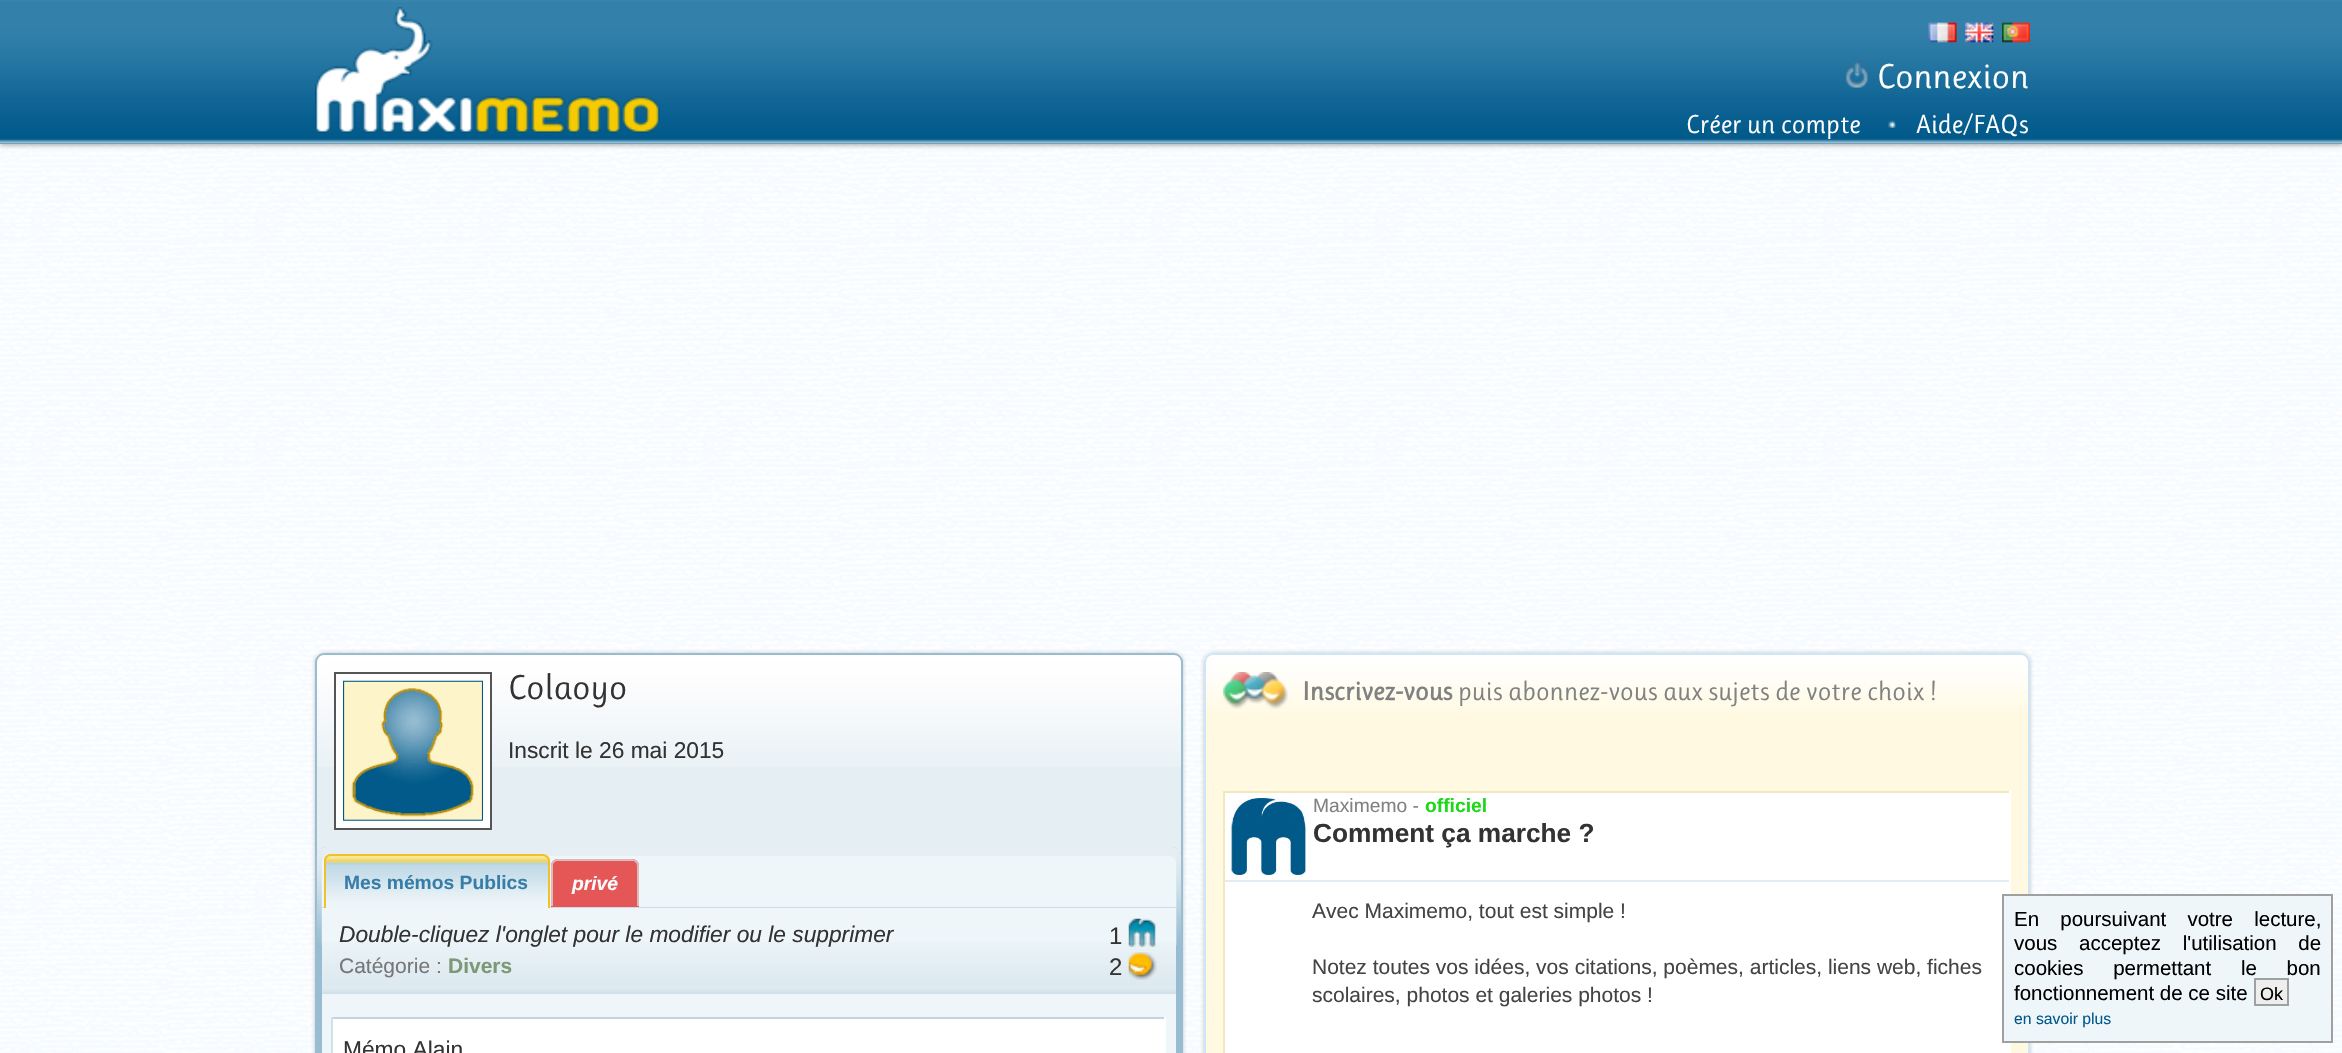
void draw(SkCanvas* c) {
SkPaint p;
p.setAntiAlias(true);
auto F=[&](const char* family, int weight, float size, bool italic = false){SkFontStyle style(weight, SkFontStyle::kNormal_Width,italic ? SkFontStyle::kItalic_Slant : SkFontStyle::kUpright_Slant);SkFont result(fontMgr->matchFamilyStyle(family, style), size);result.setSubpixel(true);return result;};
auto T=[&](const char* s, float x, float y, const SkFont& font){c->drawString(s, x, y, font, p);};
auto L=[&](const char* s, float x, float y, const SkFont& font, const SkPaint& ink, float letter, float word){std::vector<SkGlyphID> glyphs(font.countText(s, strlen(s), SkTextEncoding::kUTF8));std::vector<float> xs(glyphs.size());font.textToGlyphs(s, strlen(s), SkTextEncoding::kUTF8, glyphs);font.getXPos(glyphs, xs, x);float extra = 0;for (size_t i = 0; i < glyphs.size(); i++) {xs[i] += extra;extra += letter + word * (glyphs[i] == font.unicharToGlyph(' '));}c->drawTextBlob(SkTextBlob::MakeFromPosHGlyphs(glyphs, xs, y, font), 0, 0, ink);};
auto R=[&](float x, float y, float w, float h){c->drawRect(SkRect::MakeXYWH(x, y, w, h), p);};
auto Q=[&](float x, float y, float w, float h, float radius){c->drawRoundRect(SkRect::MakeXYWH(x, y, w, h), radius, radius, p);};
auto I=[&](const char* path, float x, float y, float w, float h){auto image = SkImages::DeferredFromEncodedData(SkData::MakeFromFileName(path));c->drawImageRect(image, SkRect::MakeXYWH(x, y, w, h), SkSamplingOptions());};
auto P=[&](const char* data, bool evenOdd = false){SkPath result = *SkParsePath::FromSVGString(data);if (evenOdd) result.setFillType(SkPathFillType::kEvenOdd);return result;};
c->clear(0xffffffff);
I("1.png",0,144,2342,909);
p.setColor(0x66231a17);
p.setMaskFilter(SkMaskFilter::MakeBlur(kNormal_SkBlurStyle, 2.5));
c->drawRect(SkRect::MakeXYWH(0,2,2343,143),p);
p.setMaskFilter(nullptr);
p.setColor(0xff448aae);
R(0,143,2342,1);
I("2.png",0,0,2342,144);
I("3.png",315,7,345,126);
I("4.png",1928,22,29,21);
I("5.png",1965,22,29,21);
I("6.png",2002,22,28,21);
I("7.png",1845,61,23,27);
auto f1 = F("Ruluko",400,35);
p.setColor(0xffffffff);
T("Connexion",1877,88,f1);
auto f2 = F("Ruluko",400,26.25);
T("Créer un compte",1686,133,f2);
I("8.png",1888,120,8,8);
T("Aide/FAQs",1916,133,f2);
p.setColor(0x40231a17);
p.setMaskFilter(SkMaskFilter::MakeBlur(kNormal_SkBlurStyle, 2));
c->drawRoundRect(SkRect::MakeXYWH(315,653,868,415),9,9,p);
p.setMaskFilter(nullptr);
p.setColor(0xffe5eef3);
Q(315,653,868,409,9);
I("9.png",315,654,868,113);
p.setStroke(true);
p.setStrokeWidth(2);
p.setColor(0xff98bdd2);
c->drawRoundRect(SkRect::MakeXYWH(316,654,866,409),8,8,p);
p.setStroke(false);
p.setColor(0xffffffff);
R(336,682,154,146);
p.setStroke(true);
p.setColor(0xff555555);
c->drawRect(SkRect::MakeXYWH(335,673,156,156),p);
I("10.png",343,680,140,141);
p.setStroke(false);
p.setColor(0xff333333);
T("Colaoyo",508,699,f1);
auto f3 = F("Liberation Sans",400,22.75);
T("Inscrit le 26 mai 2015",508,758,f3);
p.setColor(0xff98bdd2);
Q(317,847,864,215,9);
I("11.png",316,847,866,98);
p.setColor(0xffeff6f9);
c->drawPath(P("M329 856h840c4 0 7 3 7 7v45h-854v-45c0-4 3-7 7-7z"),p);
p.setColor(0xffcbdee8);
R(322,907,854,1);
p.setColor(0xffffe468);
c->drawPath(P("M331 854h212c4 0 7 3 7 7v47h-226v-47c0-4 3-7 7-7z"),p);
I("12.png",323,855,227,53);
p.setColor(0xffefc12b);
c->drawPath(P("M331 854h211c4 0 8 3 8 7v47h-226v-47c0-4 3-7 7-7zm0 2h211c3 0 6 2 6 5v47h-222v-47c0-3 2-5 5-5z",true),p);
auto f4 = F("Liberation Sans",700,19.25);
p.setColor(0xff367da7);
T("Mes mémos Publics",344,889,f4);
p.setColor(0xffe55657);
c->drawPath(P("M558 859h74c4 0 7 3 7 7v41h-88v-41c0-4 3-7 7-7z"),p);
p.setColor(0xffdcb9ba);
c->drawPath(P("M558 859h74c4 0 7 3 7 7v40h-88v-40c0-4 3-7 7-7zm0 2h74c3 0 5 2 5 5v40h-84v-40c0-3 2-5 5-5z",true),p);
auto f5 = F("Liberation Sans",700,19.25,true);
p.setColor(0xfff9fcfd);
T("privé",572,890,f5);
p.setColor(0xffeff6f9);
R(322,908,854,145);
I("13.png",322,942,854,52);
auto f6 = F("Liberation Sans",400,22.75,true);
p.setColor(0xff333333);
T("Double-cliquez l'onglet pour le modifier ou le supprimer",339,942,f6);
auto f7 = F("Liberation Sans",400,21);
p.setColor(0xff777777);
T("Catégorie :",339,973,f7);
auto f8 = F("Liberation Sans",700,21);
p.setColor(0xff7c9977);
T("Divers",448,973,f8);
auto f9 = F("Liberation Sans",400,24);
p.setColor(0xff333333);
T("1",1109,944,f9);
I("14.png",1128,918,28,29);
T("2",1109,975,f9);
I("15.png",1128,952,29,28);
p.setColor(0xffffffff);
R(333,1019,831,34);
p.setColor(0xffbfd6e0);
R(331,1017,835,2);
p.setColor(0xffffffff);
R(1164,1017,2,36);
p.setColor(0xffcfe2ea);
R(331,1017,2,36);
p.setColor(0xff333333);
T("Mémo Alain",343,1057,f3);
p.setColor(0x40231a17);
p.setMaskFilter(SkMaskFilter::MakeBlur(kNormal_SkBlurStyle, 2));
c->drawRoundRect(SkRect::MakeXYWH(1204,653,826,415),9,9,p);
p.setMaskFilter(nullptr);
p.setColor(0xfffff9e1);
Q(1204,653,826,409,9);
I("16.png",1204,654,826,58);
p.setStroke(true);
p.setColor(0xffcde7f6);
c->drawRoundRect(SkRect::MakeXYWH(1205,654,824,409),8,8,p);
I("17.png",1223,672,65,37);
auto f10 = F("Ruluko",700,26.25);
p.setStroke(false);
p.setColor(0xff818181);
T("Inscrivez-vous",1302,700,f10);
T("puis abonnez-vous aux sujets de votre choix !",1458,700,f2);
p.setColor(0xffffffff);
R(1225,793,784,260);
p.setColor(0xfff3e8bc);
R(1223,791,788,2);
p.setColor(0xffffffff);
R(2009,791,2,262);
p.setColor(0xfff3e8bc);
R(1223,791,2,262);
p.setColor(0xffe3edf1);
R(1225,880,784,2);
I("18.png",1230,798,76,77);
auto f11 = F("Liberation Sans",400,19.25);
p.setColor(0xff818181);
T("Maximemo -",1313,812,f11);
p.setColor(0xff1cd818);
T("officiel",1425,812,f4);
auto f12 = F("Liberation Sans",700,26.25);
p.setColor(0xff333333);
T("Comment ça marche ?",1313,842,f12);
p.setColor(0xff444444);
T("Avec Maximemo, tout est simple !",1312,918,f7);
T("Notez toutes vos idées, vos citations, poèmes, articles, liens web, fiches",1312,974,f7);
T("scolaires, photos et galeries photos !",1312,1002,f7);
p.setColor(0xffeff6f9);
c->drawRect(SkRect::MakeXYWH(2003,895,329,147),p);
p.setStroke(true);
p.setColor(0xffa0a0a0);
c->drawRect(SkRect::MakeXYWH(2003,895,329,147),p);
auto f13 = F("Liberation Sans",400,20.5);
p.setStroke(false);
p.setColor(0xff000000);
L("En poursuivant votre lecture,",2014,926,f13,p,0,15.5);
L("vous acceptez l'utilisation de",2014,950,f13,p,0,16);
L("cookies permettant le bon",2014,975,f13,p,0,24);
T("fonctionnement de ce site",2014,1000,f13);
p.setColor(0xffeeeeee);
c->drawRect(SkRect::MakeXYWH(2255,979,33,26),p);
p.setStroke(true);
p.setColor(0xffa0a0a0);
c->drawRect(SkRect::MakeXYWH(2255,979,33,26),p);
auto f14 = F("Liberation Sans",400,18);
p.setStroke(false);
p.setColor(0xff000000);
T("Ok",2260,1000,f14);
auto f15 = F("Liberation Sans",400,15.75);
p.setColor(0xff00598b);
T("en savoir plus",2014,1024,f15);
}
